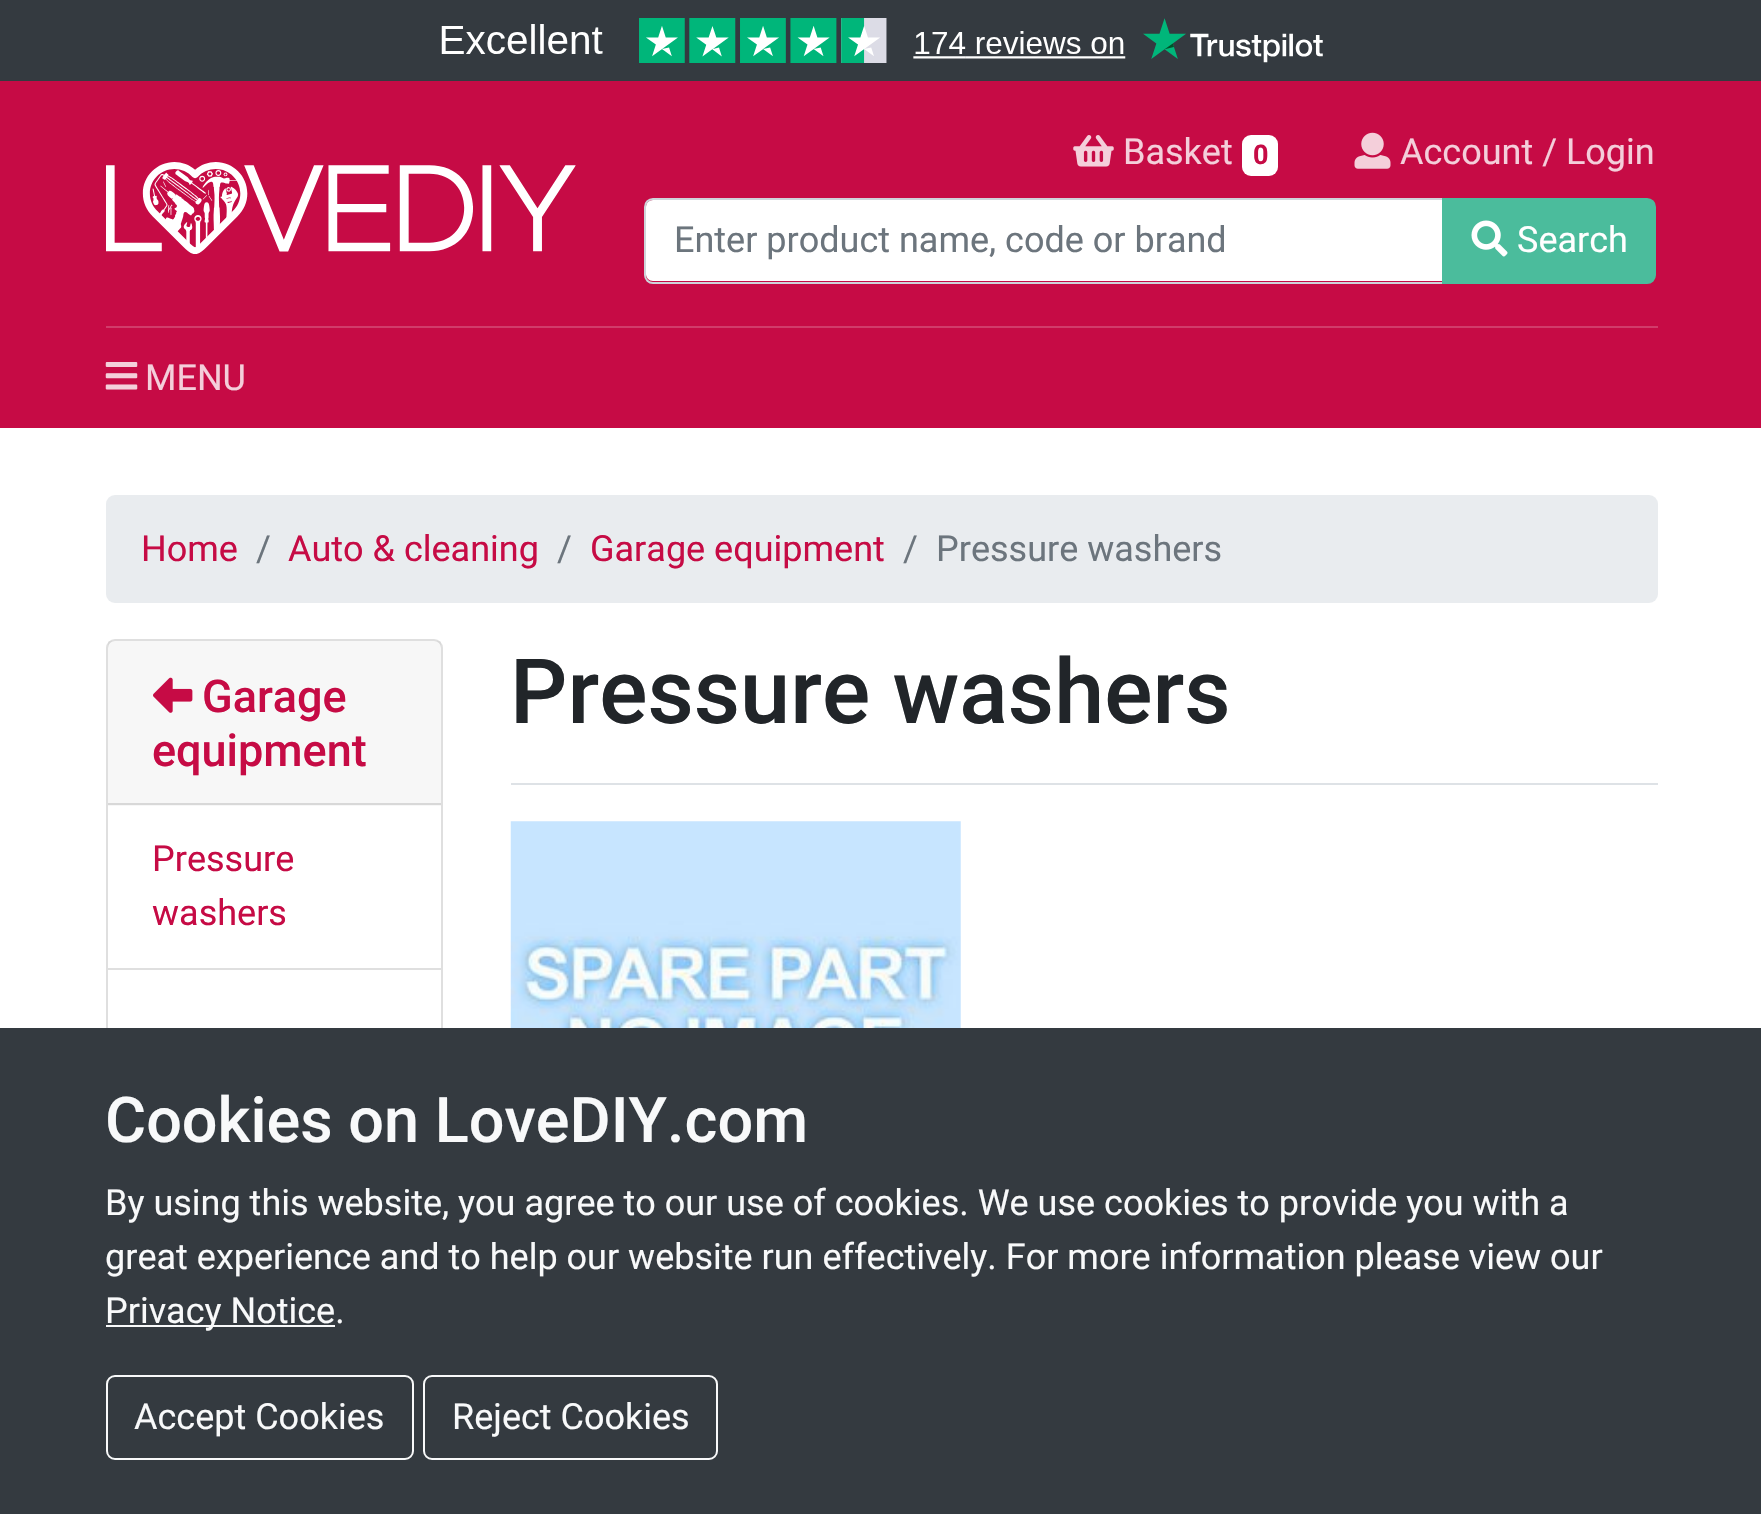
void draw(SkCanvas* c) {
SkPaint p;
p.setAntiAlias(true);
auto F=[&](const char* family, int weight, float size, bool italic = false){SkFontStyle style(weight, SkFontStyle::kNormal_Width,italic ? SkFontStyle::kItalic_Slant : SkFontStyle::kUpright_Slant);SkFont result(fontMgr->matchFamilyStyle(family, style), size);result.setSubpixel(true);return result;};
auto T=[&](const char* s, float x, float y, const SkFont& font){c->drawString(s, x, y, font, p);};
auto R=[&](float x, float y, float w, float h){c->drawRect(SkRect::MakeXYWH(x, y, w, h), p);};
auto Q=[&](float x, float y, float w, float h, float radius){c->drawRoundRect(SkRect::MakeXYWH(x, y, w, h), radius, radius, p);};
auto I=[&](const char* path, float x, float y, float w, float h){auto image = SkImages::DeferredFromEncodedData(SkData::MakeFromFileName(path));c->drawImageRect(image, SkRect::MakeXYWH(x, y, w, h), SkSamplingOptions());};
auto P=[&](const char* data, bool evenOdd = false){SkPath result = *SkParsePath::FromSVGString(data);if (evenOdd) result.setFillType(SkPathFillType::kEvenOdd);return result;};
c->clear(0xffffffff);
p.setColor(0xff343a40);
R(0,0,1761,81);
I("1.png",441,18,882,45);
p.setColor(0xffc60b45);
R(0,81,1761,347);
I("2.png",1073,135,41,32);
auto f1 = F("Roboto",400,36);
p.setColor(0xfff4ceda);
T("Basket",1123,164,f1);
p.setColor(0xffffffff);
Q(1242,135,36,41,9);
auto f2 = F("Roboto",700,27);
p.setColor(0xffc60b45);
T("0",1253,164,f2);
I("3.png",1354,132,37,37);
p.setColor(0xfff4ceda);
T("Account / Login",1400,164,f1);
I("4.png",106,162,470,92);
p.setColor(0xffffffff);
c->drawPath(P("M653 200h789v81h-789c-4 0-7-3-7-7v-67c0-4 3-7 7-7z"),p);
p.setStroke(true);
p.setStrokeWidth(2);
p.setColor(0xffced4da);
c->drawPath(P("M653 199h791v84h-791c-4.5 0-8-3.5-8-8v-68c0-4.5 3.5-8 8-8z"),p);
p.setStroke(false);
p.setColor(0xff6c757d);
T("Enter product name, code or brand",674,252,f1);
p.setColor(0xff4bbc9c);
c->drawPath(P("M1443 199h204c4.5 0 8 3.5 8 8v68c0 4.5-3.5 8-8 8h-204z"),p);
p.setStroke(true);
c->drawPath(P("M1443 199h204c4.5 0 8 3.5 8 8v68c0 4.5-3.5 8-8 8h-204z"),p);
I("5.png",1471,220,37,37);
p.setStroke(false);
p.setColor(0xffffffff);
T("Search",1517,252,f1);
p.setColor(0xffd13c6a);
R(106,326,1552,2);
I("6.png",105,362,33,28);
p.setColor(0xfff4ceda);
T("MENU",145,390,f1);
p.setColor(0xffe9ecef);
Q(106,495,1552,108,9);
p.setColor(0xffc60b45);
T("Home",141,561,f1);
p.setColor(0xff6c757d);
T("/",256,561,f1);
p.setColor(0xffc60b45);
T("Auto & cleaning",288,561,f1);
p.setColor(0xff6c757d);
T("/",557,561,f1);
p.setColor(0xffc60b45);
T("Garage equipment",590,561,f1);
p.setColor(0xff6c757d);
T("/",903,561,f1);
T("Pressure washers",936,561,f1);
p.setStroke(true);
p.setColor(0xffdfdfdf);
c->drawRoundRect(SkRect::MakeXYWH(107,640,335,768),8,8,p);
p.setStroke(false);
p.setColor(0x08000000);
R(108,641,333,165);
p.setColor(0xffd8d8d8);
R(108,803,333,2);
I("7.png",153,677,40,36);
auto f3 = F("Roboto",500,45);
p.setColor(0xffc60b45);
T("Garage",202,712,f3);
T("equipment",152,766,f3);
T("Pressure",152,871,f1);
T("washers",152,925,f1);
p.setColor(0xffdfdfdf);
R(108,968,333,2);
p.setColor(0xffdee2e6);
R(511,783,1147,2);
auto f4 = F("Roboto",500,90);
p.setColor(0xff212529);
T("Pressure washers",510,723,f4);
I("8.png",510,821,451,207);
p.setColor(0xff343a40);
R(0,1028,1761,486);
auto f5 = F("Roboto",500,63);
p.setColor(0xfff8f9fa);
T("Cookies on LoveDIY.com",105,1142,f5);
T("By using this website, you agree to our use of cookies. We use cookies to provide you with a",105,1215,f1);
T("great experience and to help our website run effectively. For more information please view our",105,1269,f1);
R(106,1325,229,2);
T("Privacy Notice.",105,1323,f1);
p.setStroke(true);
c->drawRoundRect(SkRect::MakeXYWH(107,1376,306,83),8,8,p);
p.setStroke(false);
T("Accept Cookies",134,1429,f1);
p.setStroke(true);
c->drawRoundRect(SkRect::MakeXYWH(424,1376,293,83),8,8,p);
p.setStroke(false);
T("Reject Cookies",452,1429,f1);
}
